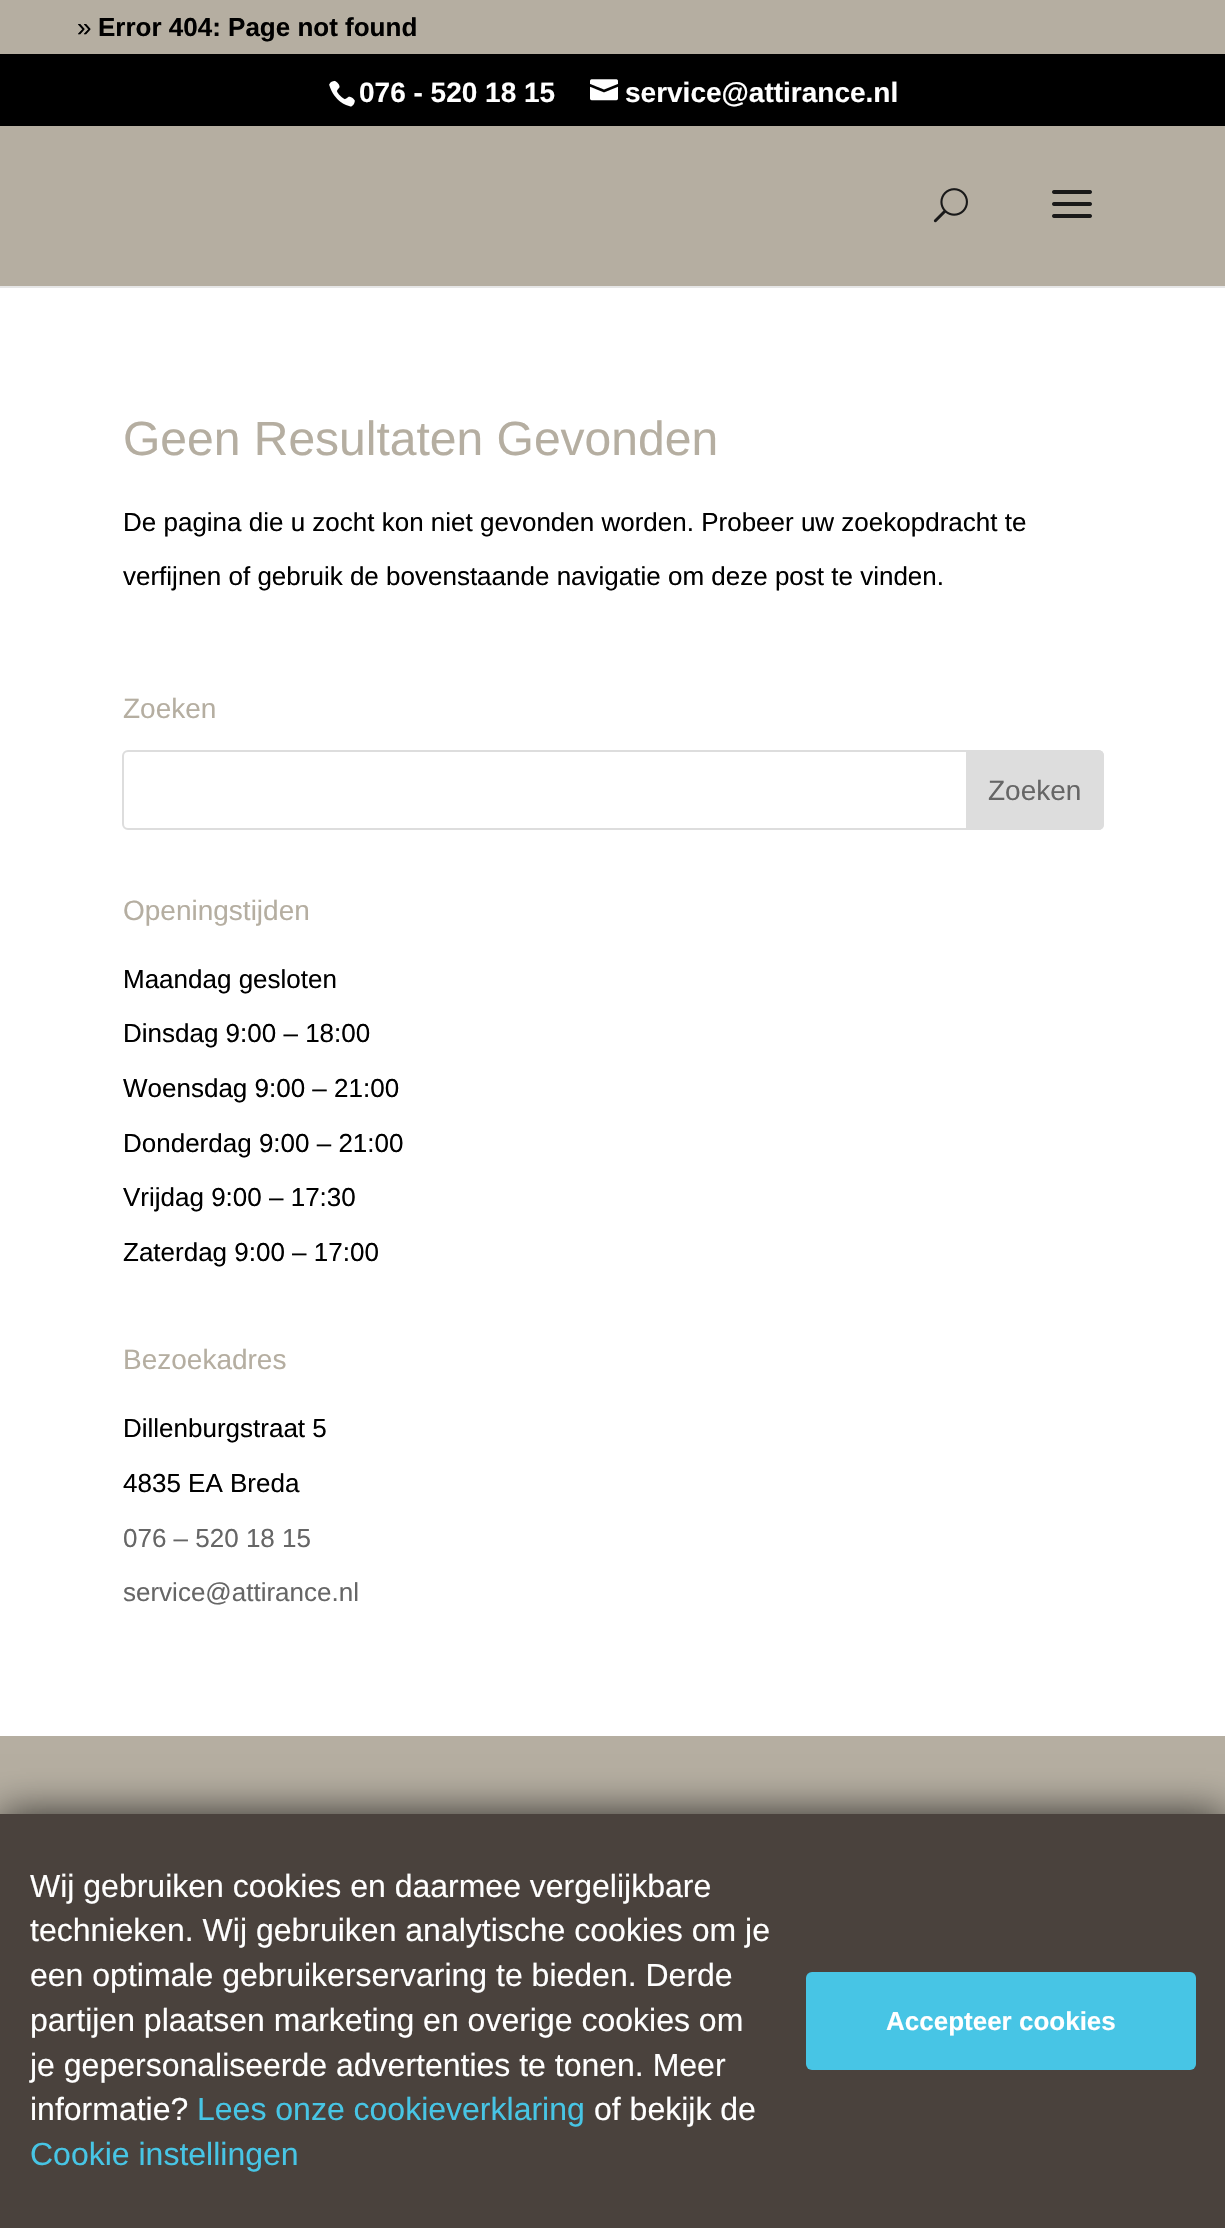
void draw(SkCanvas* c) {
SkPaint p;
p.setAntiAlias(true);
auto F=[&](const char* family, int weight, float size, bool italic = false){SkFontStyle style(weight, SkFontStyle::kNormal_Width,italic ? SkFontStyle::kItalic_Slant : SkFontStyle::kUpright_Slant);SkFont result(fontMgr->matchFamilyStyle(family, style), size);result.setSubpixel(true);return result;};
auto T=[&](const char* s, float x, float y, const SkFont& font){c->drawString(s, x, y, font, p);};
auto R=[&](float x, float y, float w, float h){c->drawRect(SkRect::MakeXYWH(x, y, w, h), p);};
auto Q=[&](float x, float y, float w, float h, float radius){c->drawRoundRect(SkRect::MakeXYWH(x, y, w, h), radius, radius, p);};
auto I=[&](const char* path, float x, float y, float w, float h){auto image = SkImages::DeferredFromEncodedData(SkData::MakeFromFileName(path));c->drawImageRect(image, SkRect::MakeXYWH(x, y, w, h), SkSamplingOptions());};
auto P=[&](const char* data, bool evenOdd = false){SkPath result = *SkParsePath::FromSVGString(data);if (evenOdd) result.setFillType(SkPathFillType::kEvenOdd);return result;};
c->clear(0xffb5aea1);
auto f1 = F("Liberation Sans",400,26);
p.setColor(0xff000000);
T("»",77,36,f1);
auto f2 = F("Liberation Sans",700,26);
T("Error 404: Page not found",98,36,f2);
R(0,54,1225,72);
I("1.png",329,80,26,27);
auto f3 = F("Liberation Sans",700,28);
p.setColor(0xffffffff);
T("076 - 520 18 15",359,102,f3);
I("2.png",590,79,28,22);
T("service@attirance.nl",625,102,f3);
p.setColor(0xffe6e6e6);
R(0,286,1225,2);
I("3.png",933,188,35,35);
I("4.png",1052,190,40,28);
p.setColor(0xffffffff);
R(0,288,1225,1448);
auto f4 = F("Liberation Sans",400,48);
p.setColor(0xffb5aea1);
T("Geen Resultaten Gevonden",123,455,f4);
p.setColor(0xff000000);
T("De pagina die u zocht kon niet gevonden worden. Probeer uw zoekopdracht te",123,531,f1);
T("verfijnen of gebruik de bovenstaande navigatie om deze post te vinden.",123,585,f1);
auto f5 = F("Liberation Sans",400,28);
p.setColor(0xffb5aea1);
T("Zoeken",123,718,f5);
p.setStroke(true);
p.setStrokeWidth(2);
p.setColor(0xffdddddd);
c->drawRoundRect(SkRect::MakeXYWH(123,751,980,78),5,5,p);
p.setStroke(false);
c->drawPath(P("M967 751h131c3 0 5 2 5 5v68c0 3-2 5-5 5h-131z"),p);
p.setStroke(true);
c->drawPath(P("M967 751h131c3 0 5 2 5 5v68c0 3-2 5-5 5h-131z"),p);
p.setStroke(false);
p.setColor(0xff666666);
T("Zoeken",988,800,f5);
p.setColor(0xffb5aea1);
T("Openingstijden",123,920,f5);
p.setColor(0xff000000);
T("Maandag gesloten",123,988,f1);
T("Dinsdag 9:00 – 18:00",123,1042,f1);
T("Woensdag 9:00 – 21:00",123,1097,f1);
T("Donderdag 9:00 – 21:00",123,1152,f1);
T("Vrijdag 9:00 – 17:30",123,1206,f1);
T("Zaterdag 9:00 – 17:00",123,1261,f1);
p.setColor(0xffb5aea1);
T("Bezoekadres",123,1369,f5);
p.setColor(0xff000000);
T("Dillenburgstraat 5",123,1437,f1);
T("4835 EA Breda",123,1492,f1);
p.setColor(0xff666666);
T("076 – 520 18 15",123,1547,f1);
T("service@attirance.nl",123,1601,f1);
p.setColor(0xbf000000);
p.setMaskFilter(SkMaskFilter::MakeBlur(kNormal_SkBlurStyle, 20));
c->drawRect(SkRect::MakeXYWH(0,1814,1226,414),p);
p.setMaskFilter(nullptr);
p.setColor(0xff4a423d);
R(0,1814,1225,414);
auto f6 = F("Liberation Sans",400,32);
p.setColor(0xffffffff);
T("Wij gebruiken cookies en daarmee vergelijkbare",30,1897,f6);
T("technieken. Wij gebruiken analytische cookies om je",30,1941,f6);
T("een optimale gebruikerservaring te bieden. Derde",30,1986,f6);
T("partijen plaatsen marketing en overige cookies om",30,2031,f6);
T("je gepersonaliseerde advertenties te tonen. Meer",30,2076,f6);
T("informatie?",30,2120,f6);
p.setColor(0xff47c5e5);
T("Lees onze cookieverklaring",197,2120,f6);
p.setColor(0xffffffff);
T("of bekijk de",594,2120,f6);
p.setColor(0xff47c5e5);
T("Cookie instellingen",30,2165,f6);
Q(806,1972,390,98,6);
p.setColor(0xffffffff);
T("Accepteer cookies",886,2030,f2);
}
